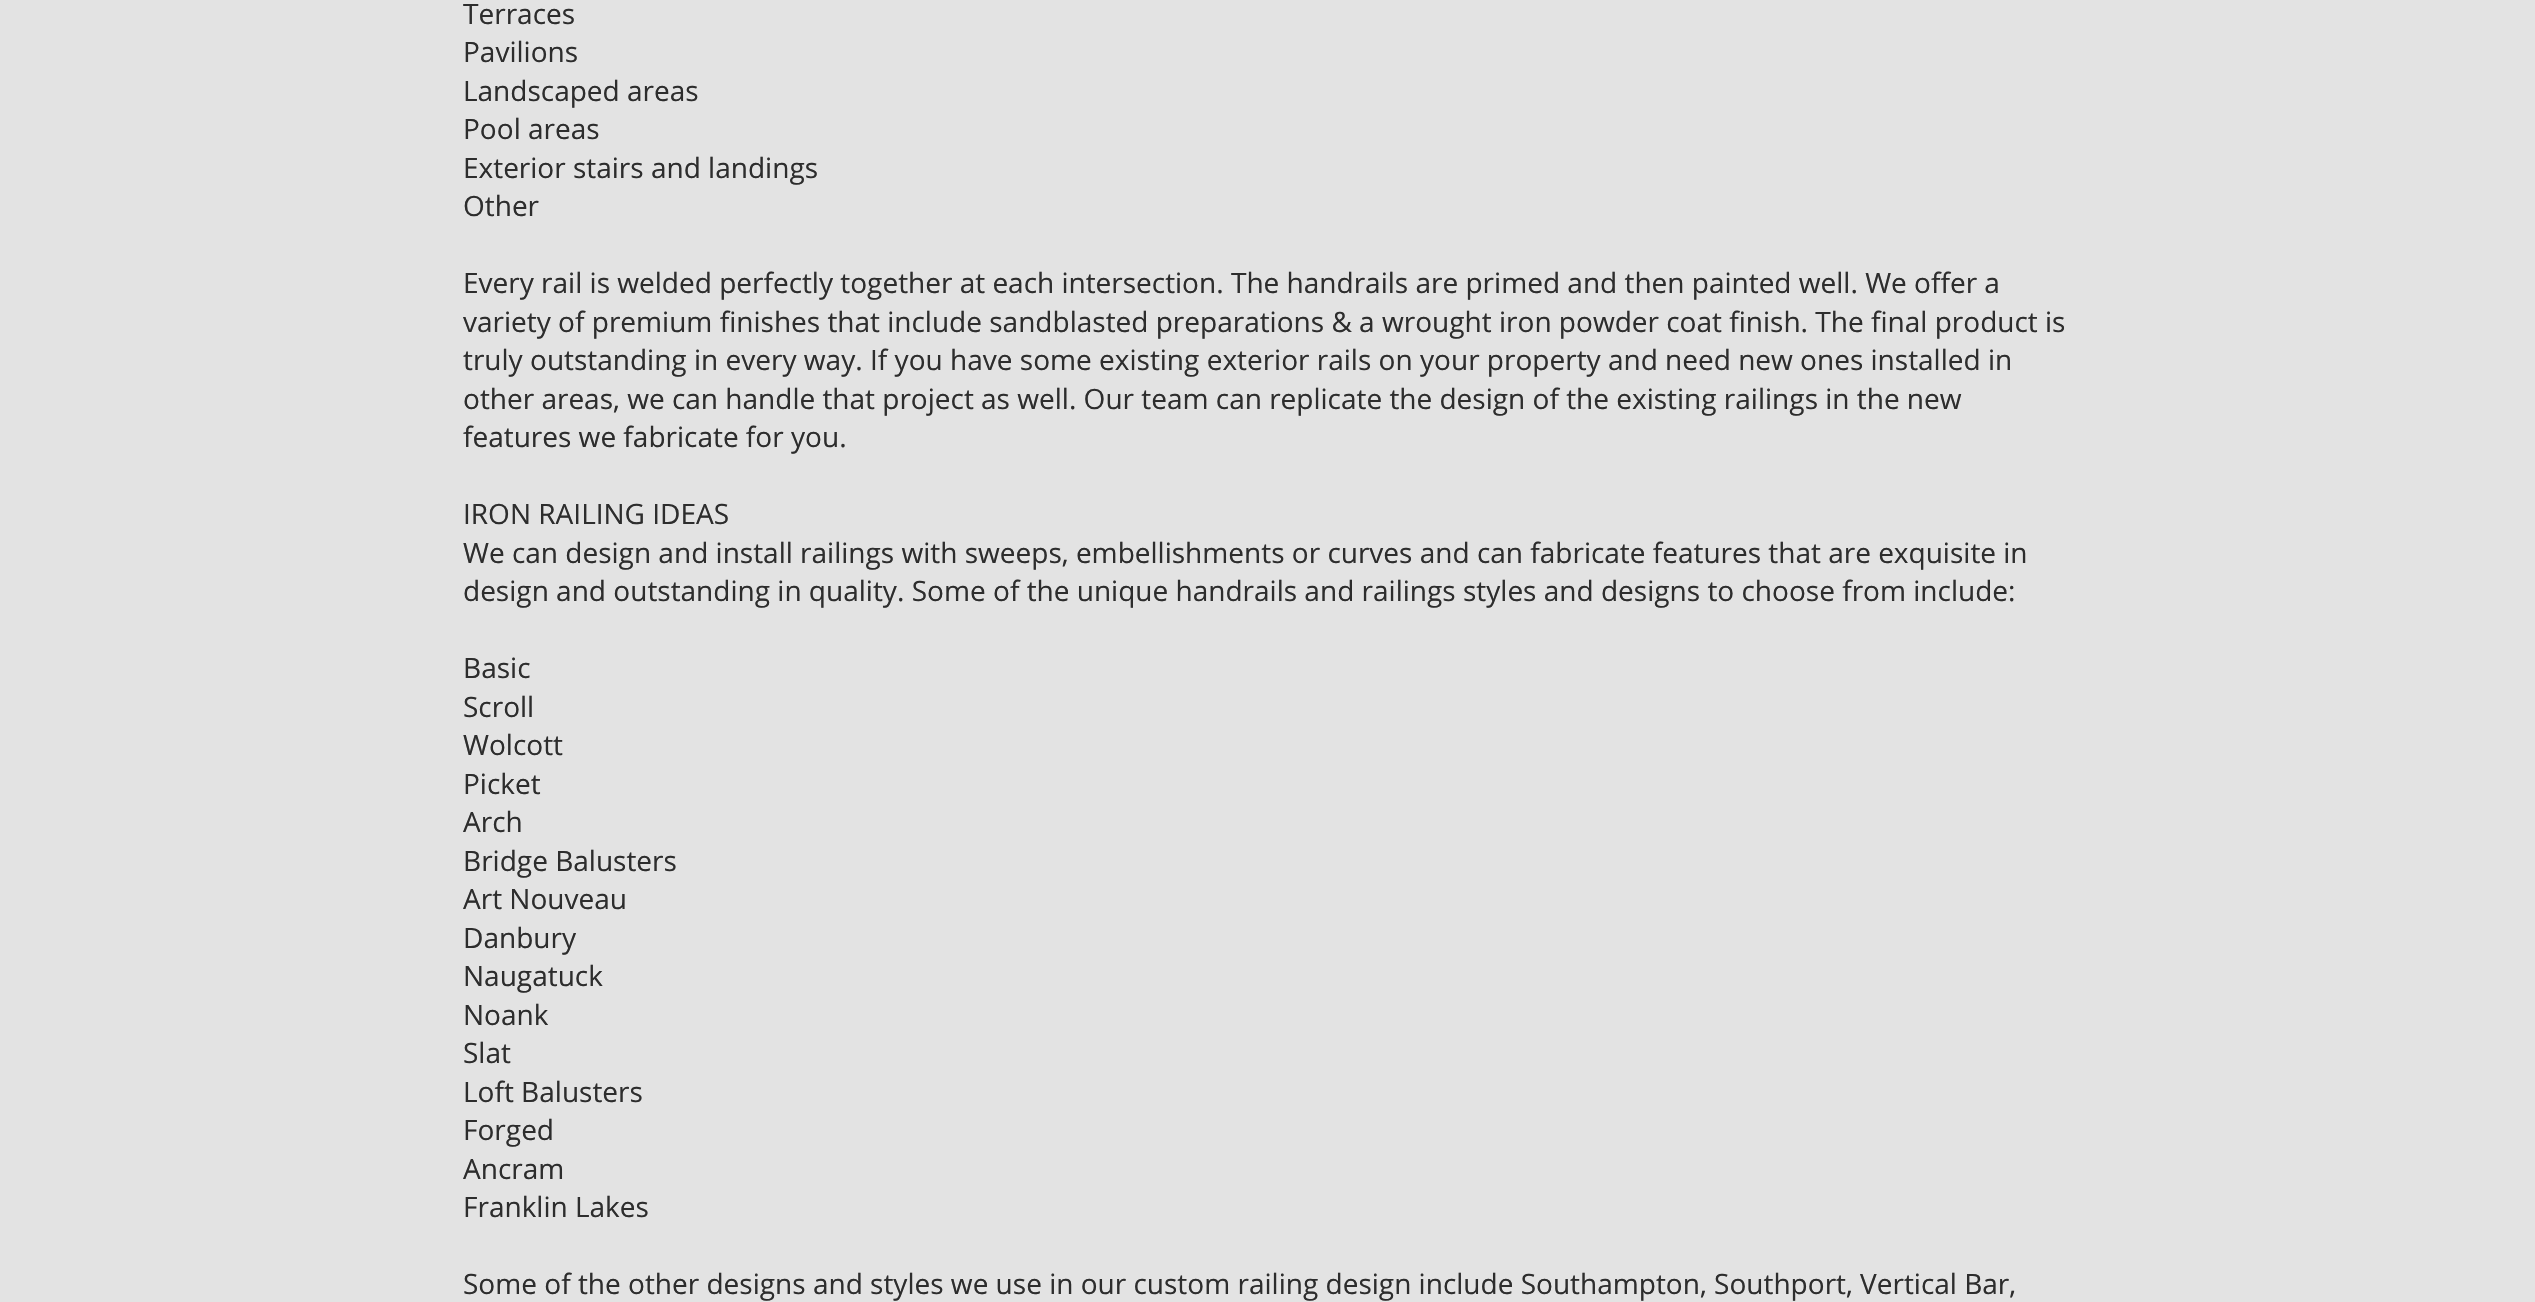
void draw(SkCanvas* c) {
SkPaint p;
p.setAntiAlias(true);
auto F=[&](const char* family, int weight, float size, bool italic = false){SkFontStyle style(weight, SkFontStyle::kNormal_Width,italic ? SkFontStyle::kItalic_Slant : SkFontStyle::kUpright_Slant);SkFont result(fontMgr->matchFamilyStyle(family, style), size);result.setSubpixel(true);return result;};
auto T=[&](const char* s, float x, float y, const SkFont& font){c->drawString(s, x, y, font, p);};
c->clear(0xffe3e3e3);
auto f1 = F("Open Sans",400,28);
p.setColor(0xff2d2d2d);
T("Terraces",463,24,f1);
T("Pavilions",463,62,f1);
T("Landscaped areas",463,101,f1);
T("Pool areas",463,139,f1);
T("Exterior stairs and landings",463,178,f1);
T("Other",463,216,f1);
T("Every rail is welded perfectly together at each intersection. The handrails are primed and then painted well. We offer a",463,293,f1);
T("variety of premium finishes that include sandblasted preparations & a wrought iron powder coat finish. The final product is",463,332,f1);
T("truly outstanding in every way. If you have some existing exterior rails on your property and need new ones installed in",463,370,f1);
T("other areas, we can handle that project as well. Our team can replicate the design of the existing railings in the new",463,409,f1);
T("features we fabricate for you.",463,447,f1);
T("IRON RAILING IDEAS",463,524,f1);
T("We can design and install railings with sweeps, embellishments or curves and can fabricate features that are exquisite in",463,563,f1);
T("design and outstanding in quality. Some of the unique handrails and railings styles and designs to choose from include:",463,601,f1);
T("Basic",463,678,f1);
T("Scroll",463,717,f1);
T("Wolcott",463,755,f1);
T("Picket",463,794,f1);
T("Arch",463,832,f1);
T("Bridge Balusters",463,871,f1);
T("Art Nouveau",463,909,f1);
T("Danbury",463,948,f1);
T("Naugatuck",463,986,f1);
T("Noank",463,1025,f1);
T("Slat",463,1063,f1);
T("Loft Balusters",463,1102,f1);
T("Forged",463,1140,f1);
T("Ancram",463,1179,f1);
T("Franklin Lakes",463,1217,f1);
T("Some of the other designs and styles we use in our custom railing design include Southampton, Southport, Vertical Bar,",463,1294,f1);
}
